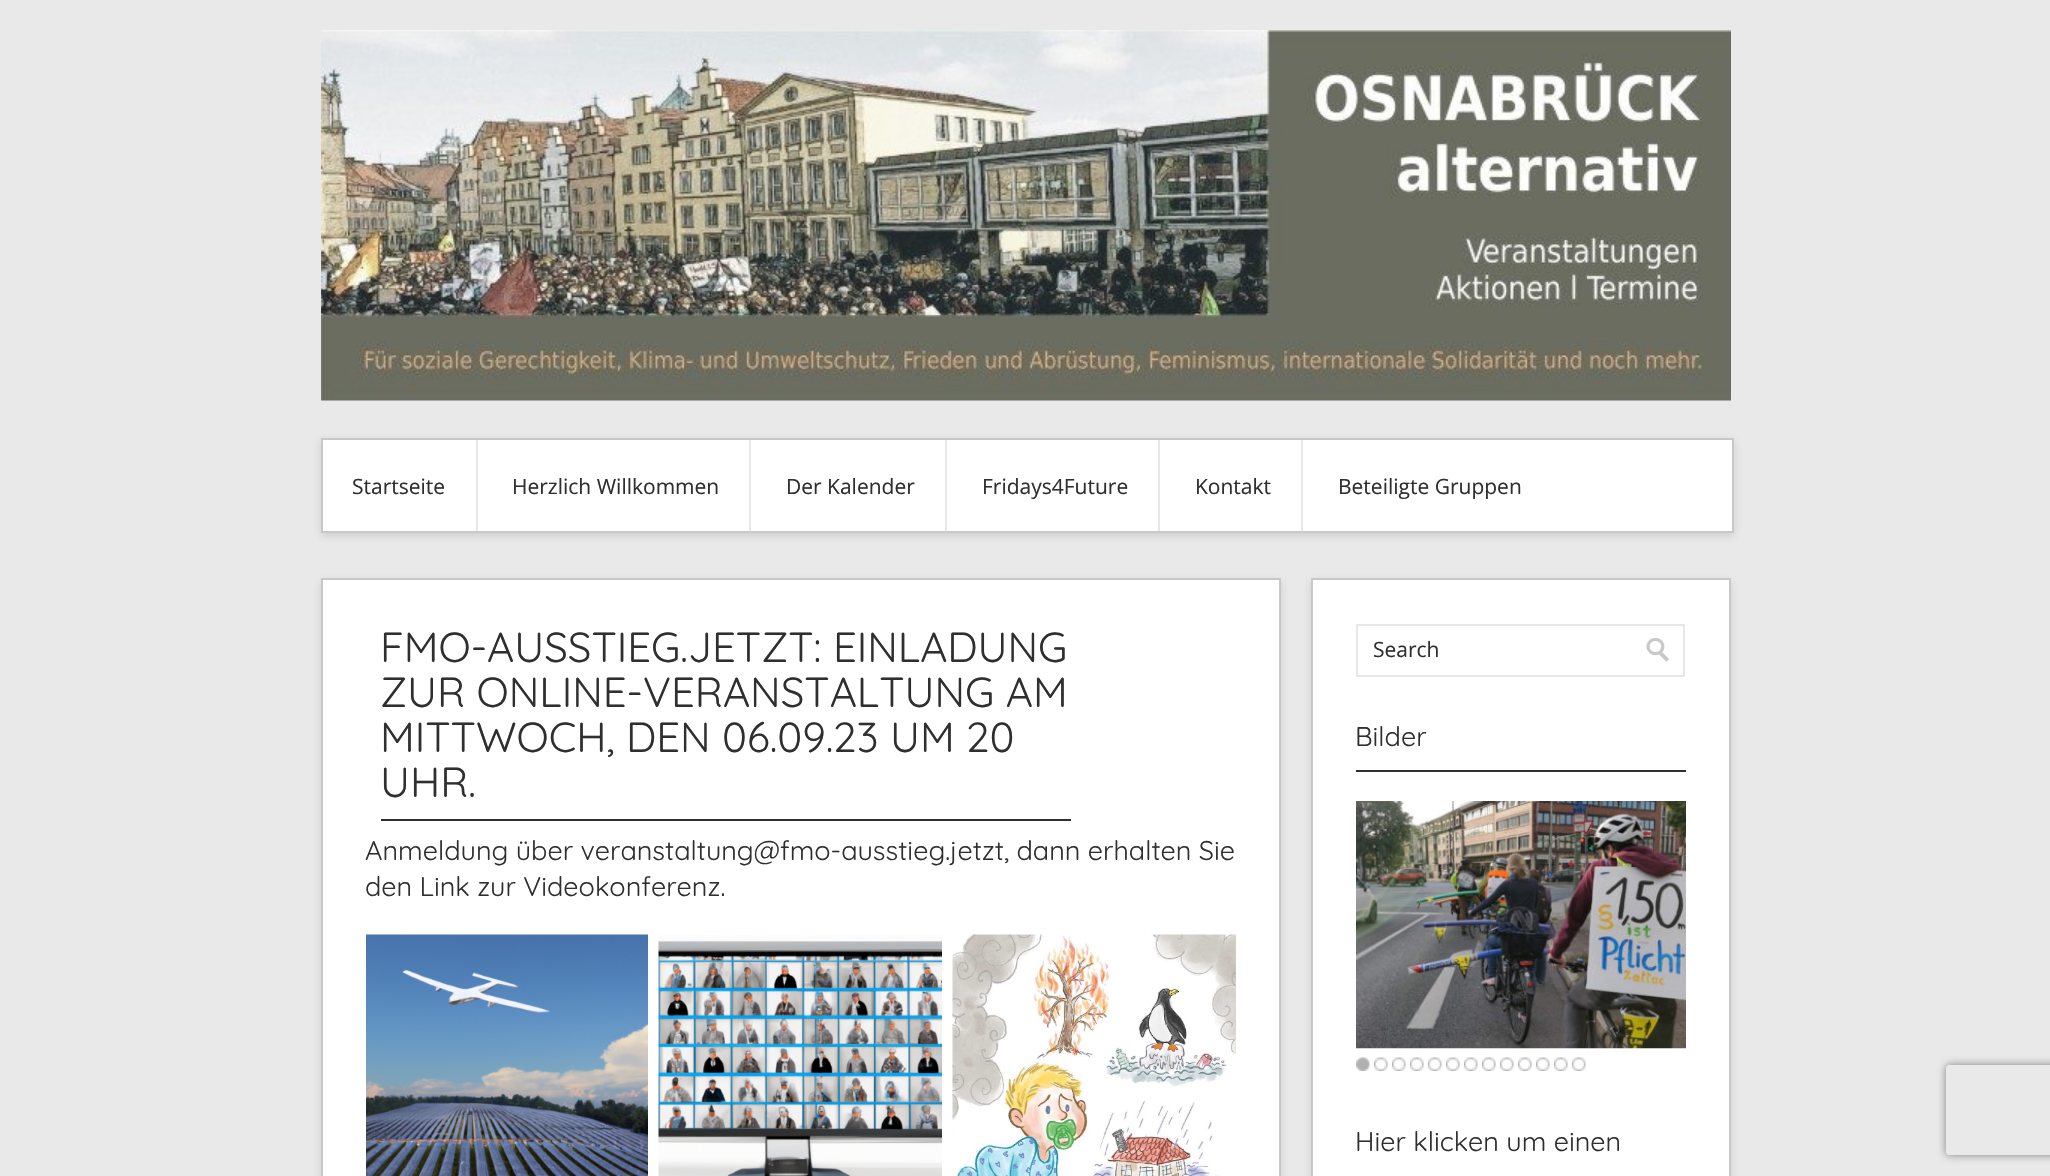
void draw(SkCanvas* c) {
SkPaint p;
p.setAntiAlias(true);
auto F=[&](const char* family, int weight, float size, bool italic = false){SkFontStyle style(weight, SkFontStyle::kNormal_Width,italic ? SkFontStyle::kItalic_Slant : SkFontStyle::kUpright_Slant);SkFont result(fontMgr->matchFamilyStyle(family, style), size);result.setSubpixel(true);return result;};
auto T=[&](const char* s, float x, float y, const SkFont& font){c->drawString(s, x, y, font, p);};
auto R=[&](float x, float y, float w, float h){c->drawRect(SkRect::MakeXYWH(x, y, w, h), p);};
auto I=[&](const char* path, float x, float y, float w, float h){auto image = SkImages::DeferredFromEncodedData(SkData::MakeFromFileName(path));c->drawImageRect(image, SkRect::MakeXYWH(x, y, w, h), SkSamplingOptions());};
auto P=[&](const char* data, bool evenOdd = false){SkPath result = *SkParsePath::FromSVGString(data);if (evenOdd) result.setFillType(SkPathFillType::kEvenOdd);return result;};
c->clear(0xffe9e9e9);
I("1.png",321,30,1410,371);
p.setColor(0x26323232);
p.setMaskFilter(SkMaskFilter::MakeBlur(kNormal_SkBlurStyle, 4));
c->drawRect(SkRect::MakeXYWH(321,441,1413,95),p);
p.setMaskFilter(nullptr);
p.setColor(0xffffffff);
c->drawRect(SkRect::MakeXYWH(322,439,1411,93),p);
p.setStroke(true);
p.setStrokeWidth(2);
p.setColor(0xffc8c8c8);
c->drawRect(SkRect::MakeXYWH(322,439,1411,93),p);
p.setStroke(false);
p.setColor(0xffe7e7e7);
R(476,440,2,91);
auto f1 = F("Open Sans",400,21);
p.setColor(0xff2f2f2f);
T("Startseite",352,494,f1);
p.setColor(0xffe7e7e7);
R(749,440,2,91);
p.setColor(0xff2f2f2f);
T("Herzlich Willkommen",512,494,f1);
p.setColor(0xffe7e7e7);
R(945,440,2,91);
p.setColor(0xff2f2f2f);
T("Der Kalender",786,494,f1);
p.setColor(0xffe7e7e7);
R(1158,440,2,91);
p.setColor(0xff2f2f2f);
T("Fridays4Future",982,494,f1);
p.setColor(0xffe7e7e7);
R(1301,440,2,91);
p.setColor(0xff2f2f2f);
T("Kontakt",1195,494,f1);
T("Beteiligte Gruppen",1338,494,f1);
p.setColor(0x26323232);
p.setMaskFilter(SkMaskFilter::MakeBlur(kNormal_SkBlurStyle, 4));
c->drawRect(SkRect::MakeXYWH(321,581,960,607),p);
p.setMaskFilter(nullptr);
p.setColor(0xffffffff);
c->drawRect(SkRect::MakeXYWH(322,579,958,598),p);
p.setStroke(true);
p.setColor(0xffc8c8c8);
c->drawRect(SkRect::MakeXYWH(322,579,958,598),p);
p.setStroke(false);
p.setColor(0xff2f2f2f);
R(381,819,690,2);
auto f2 = F("Quicksand",300,42);
T("FMO-AUSSTIEG.JETZT: EINLADUNG",380,662,f2);
T("ZUR ONLINE-VERANSTALTUNG AM",380,707,f2);
T("MITTWOCH, DEN 06.09.23 UM 20",380,752,f2);
T("UHR.",380,797,f2);
auto f3 = F("Quicksand",300,27);
T("Anmeldung über veranstaltung@fmo-ausstieg.jetzt, dann erhalten Sie",365,860,f3);
T("den Link zur Videokonferenz.",365,896,f3);
I("2.png",366,934,282,242);
I("3.png",658,935,284,241);
I("4.png",952,934,284,242);
p.setColor(0x26323232);
p.setMaskFilter(SkMaskFilter::MakeBlur(kNormal_SkBlurStyle, 4));
c->drawRect(SkRect::MakeXYWH(1311,581,420,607),p);
p.setMaskFilter(nullptr);
p.setColor(0xffffffff);
c->drawRect(SkRect::MakeXYWH(1312,579,418,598),p);
p.setStroke(true);
p.setColor(0xffc8c8c8);
c->drawRect(SkRect::MakeXYWH(1312,579,418,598),p);
p.setColor(0xffe7e7e7);
c->drawRect(SkRect::MakeXYWH(1357,625,327,51),p);
p.setStroke(false);
p.setColor(0xff2f2f2f);
T("Search",1373,657,f1);
I("5.png",1646,638,23,24);
R(1356,770,330,2);
T("Bilder",1355,746,f3);
I("6.png",1356,801,330,248);
I("7.png",1356,1057,14,14);
I("8.png",1374,1057,14,14);
I("8.png",1392,1057,14,14);
I("8.png",1410,1057,14,14);
I("8.png",1428,1057,14,14);
I("8.png",1446,1057,14,14);
I("9.png",1464,1057,14,14);
I("9.png",1482,1057,14,14);
I("9.png",1500,1057,14,14);
I("10.png",1518,1057,14,14);
I("8.png",1536,1057,14,14);
I("8.png",1554,1057,14,14);
I("8.png",1572,1057,14,14);
T("Hier klicken um einen",1355,1151,f3);
c->save();
c->clipPath(P("M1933 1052h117v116h-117zm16 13h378c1.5 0 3 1.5 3 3v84c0 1.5-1.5 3-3 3h-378c-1.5 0-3-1.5-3-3v-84c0-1.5 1.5-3 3-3z",true),true);
p.setColor(0xff808080);
p.setMaskFilter(SkMaskFilter::MakeBlur(kNormal_SkBlurStyle, 4));
c->drawRoundRect(SkRect::MakeXYWH(1946,1065,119,90),3,3,p);
p.setMaskFilter(nullptr);
c->restore();
}
